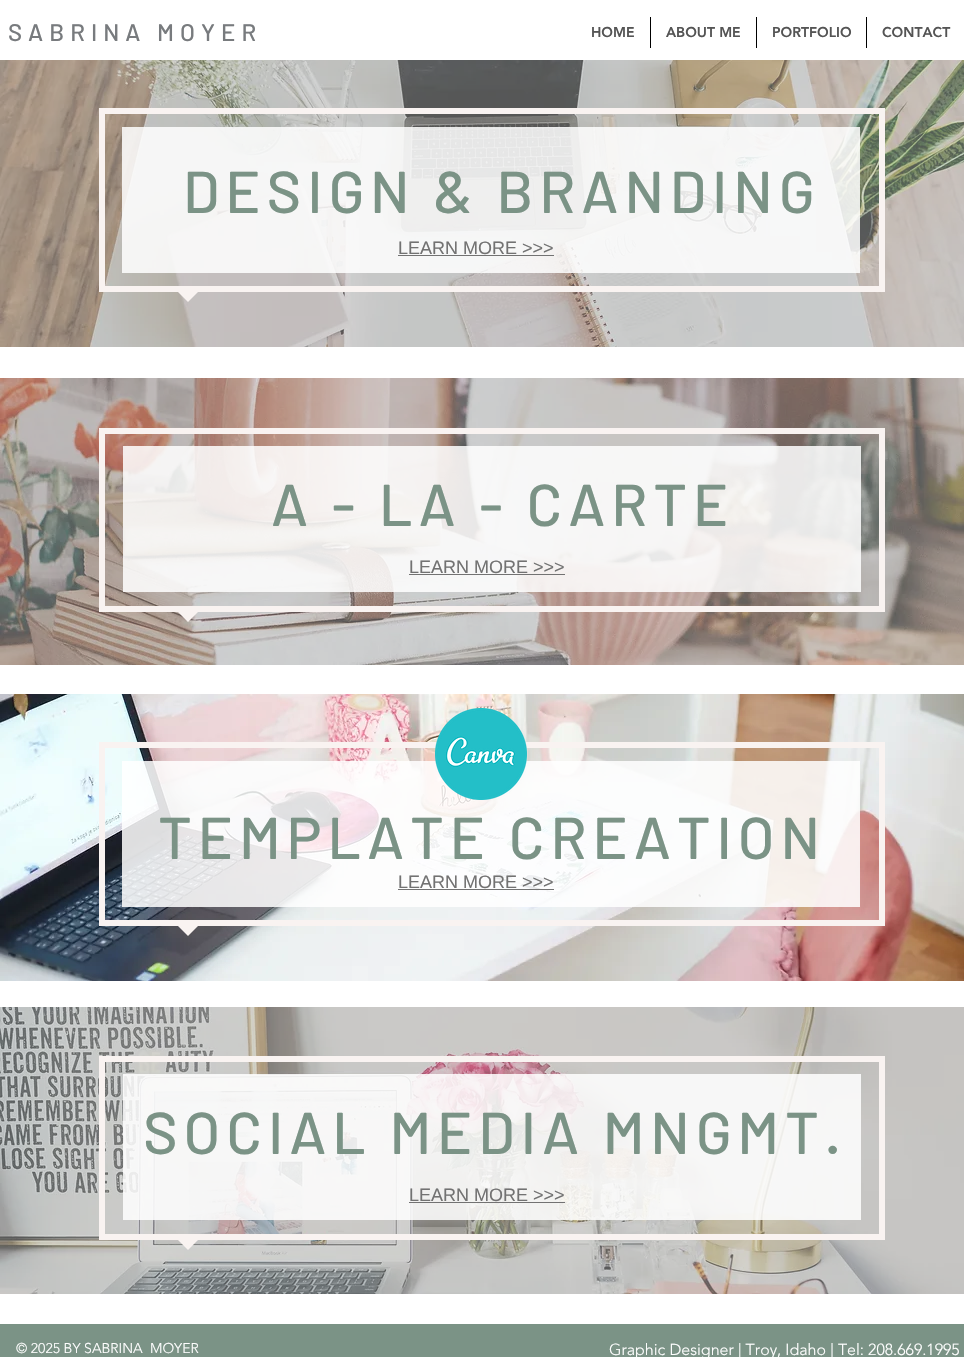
void draw(SkCanvas* c) {
SkPaint p;
p.setAntiAlias(true);
auto F=[&](const char* family, int weight, float size, bool italic = false){SkFontStyle style(weight, SkFontStyle::kNormal_Width,italic ? SkFontStyle::kItalic_Slant : SkFontStyle::kUpright_Slant);SkFont result(fontMgr->matchFamilyStyle(family, style), size);result.setSubpixel(true);return result;};
auto T=[&](const char* s, float x, float y, const SkFont& font){c->drawString(s, x, y, font, p);};
auto L=[&](const char* s, float x, float y, const SkFont& font, const SkPaint& ink, float letter, float word){std::vector<SkGlyphID> glyphs(font.countText(s, strlen(s), SkTextEncoding::kUTF8));std::vector<float> xs(glyphs.size());font.textToGlyphs(s, strlen(s), SkTextEncoding::kUTF8, glyphs);font.getXPos(glyphs, xs, x);float extra = 0;for (size_t i = 0; i < glyphs.size(); i++) {xs[i] += extra;extra += letter + word * (glyphs[i] == font.unicharToGlyph(' '));}c->drawTextBlob(SkTextBlob::MakeFromPosHGlyphs(glyphs, xs, y, font), 0, 0, ink);};
auto R=[&](float x, float y, float w, float h){c->drawRect(SkRect::MakeXYWH(x, y, w, h), p);};
auto I=[&](const char* path, float x, float y, float w, float h){auto image = SkImages::DeferredFromEncodedData(SkData::MakeFromFileName(path));c->drawImageRect(image, SkRect::MakeXYWH(x, y, w, h), SkSamplingOptions());};
auto P=[&](const char* data, bool evenOdd = false){SkPath result = *SkParsePath::FromSVGString(data);if (evenOdd) result.setFillType(SkPathFillType::kEvenOdd);return result;};
c->clear(0xffffffff);
auto f1 = F("Barlow",500,24);
p.setColor(0xff787b7e);
L("SABRINA MOYER",8,41,f1,p,6,0);
auto f2 = F("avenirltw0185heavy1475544",900,14);
p.setColor(0xff545454);
T("HOME",591,37,f2);
p.setColor(0xff000000);
R(650,17,1,31);
p.setColor(0xff545454);
T("ABOUT ME",666,37,f2);
p.setColor(0xff000000);
R(756,17,1,31);
p.setColor(0xff545454);
T("PORTFOLIO",772,37,f2);
p.setColor(0xff000000);
R(866,17,1,31);
p.setColor(0xff545454);
T("CONTACT",882,37,f2);
p.setColor(0xffa9a9a9);
R(0,60,964,287);
I("1.png",0,60,964,287);
p.setStroke(true);
p.setStrokeWidth(6);
p.setColor(0xfff9f3f1);
c->drawRect(SkRect::MakeXYWH(102,111,780,178),p);
p.setStroke(false);
p.setColor(0xd9ffffff);
R(122,127,738,146);
auto f3 = F("Barlow",500,59);
p.setColor(0xff7b9386);
L("DESIGN & BRANDING",183,213,f3,p,5.9,0);
auto f4 = F("Liberation Sans",400,18);
p.setColor(0xff727272);
T("LEARN MORE >>>",398,254,f4);
R(398,255,156,1);
p.setColor(0xfff9f3f1);
c->drawPath(P("M178 292h20l-10 10z"),p);
p.setColor(0xffa9a9a9);
R(0,378,964,287);
I("2.png",0,378,964,287);
p.setStroke(true);
p.setColor(0xfff9f3f1);
c->drawRect(SkRect::MakeXYWH(102,431,780,178),p);
p.setStroke(false);
p.setColor(0xd9ffffff);
R(123,446,738,146);
p.setColor(0xff7b9386);
L("A - LA - CARTE",271,526,f3,p,5.9,0);
p.setColor(0xff727272);
T("LEARN MORE >>>",409,573,f4);
R(409,574,156,1);
p.setColor(0xfff9f3f1);
c->drawPath(P("M178 612h20l-10 10z"),p);
I("4.png",0,694,964,287);
p.setStroke(true);
c->drawRect(SkRect::MakeXYWH(102,745,780,178),p);
p.setStroke(false);
p.setColor(0xd9ffffff);
R(122,761,738,146);
I("3.png",435,708,92,92);
p.setColor(0xff7b9386);
L("TEMPLATE CREATION",158,859,f3,p,5.9,0);
p.setColor(0xff727272);
T("LEARN MORE >>>",398,888,f4);
R(398,889,156,1);
p.setColor(0xfff9f3f1);
c->drawPath(P("M178 926h20l-10 10z"),p);
p.setColor(0xffa9a9a9);
R(0,1007,964,287);
I("5.png",0,1007,964,287);
p.setStroke(true);
p.setColor(0xfff9f3f1);
c->drawRect(SkRect::MakeXYWH(102,1059,780,178),p);
p.setStroke(false);
p.setColor(0xd9ffffff);
R(123,1074,738,146);
p.setColor(0xff7b9386);
L("SOCIAL MEDIA MNGMT.",143,1154,f3,p,5.9,0);
p.setColor(0xff727272);
T("LEARN MORE >>>",409,1201,f4);
R(409,1202,156,1);
p.setColor(0xfff9f3f1);
c->drawPath(P("M178 1240h20l-10 10z"),p);
p.setColor(0xff7b9386);
R(0,1324,964,33);
auto f5 = F("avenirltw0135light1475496",300,14);
p.setColor(0xffffffff);
T("© 2025 BY SABRINA  MOYER",16,1353,f5);
auto f6 = F("avenirltw0135light1475496",300,16);
T("Graphic Designer | Troy, Idaho | Tel: 208.669.1995",609,1355,f6);
}
